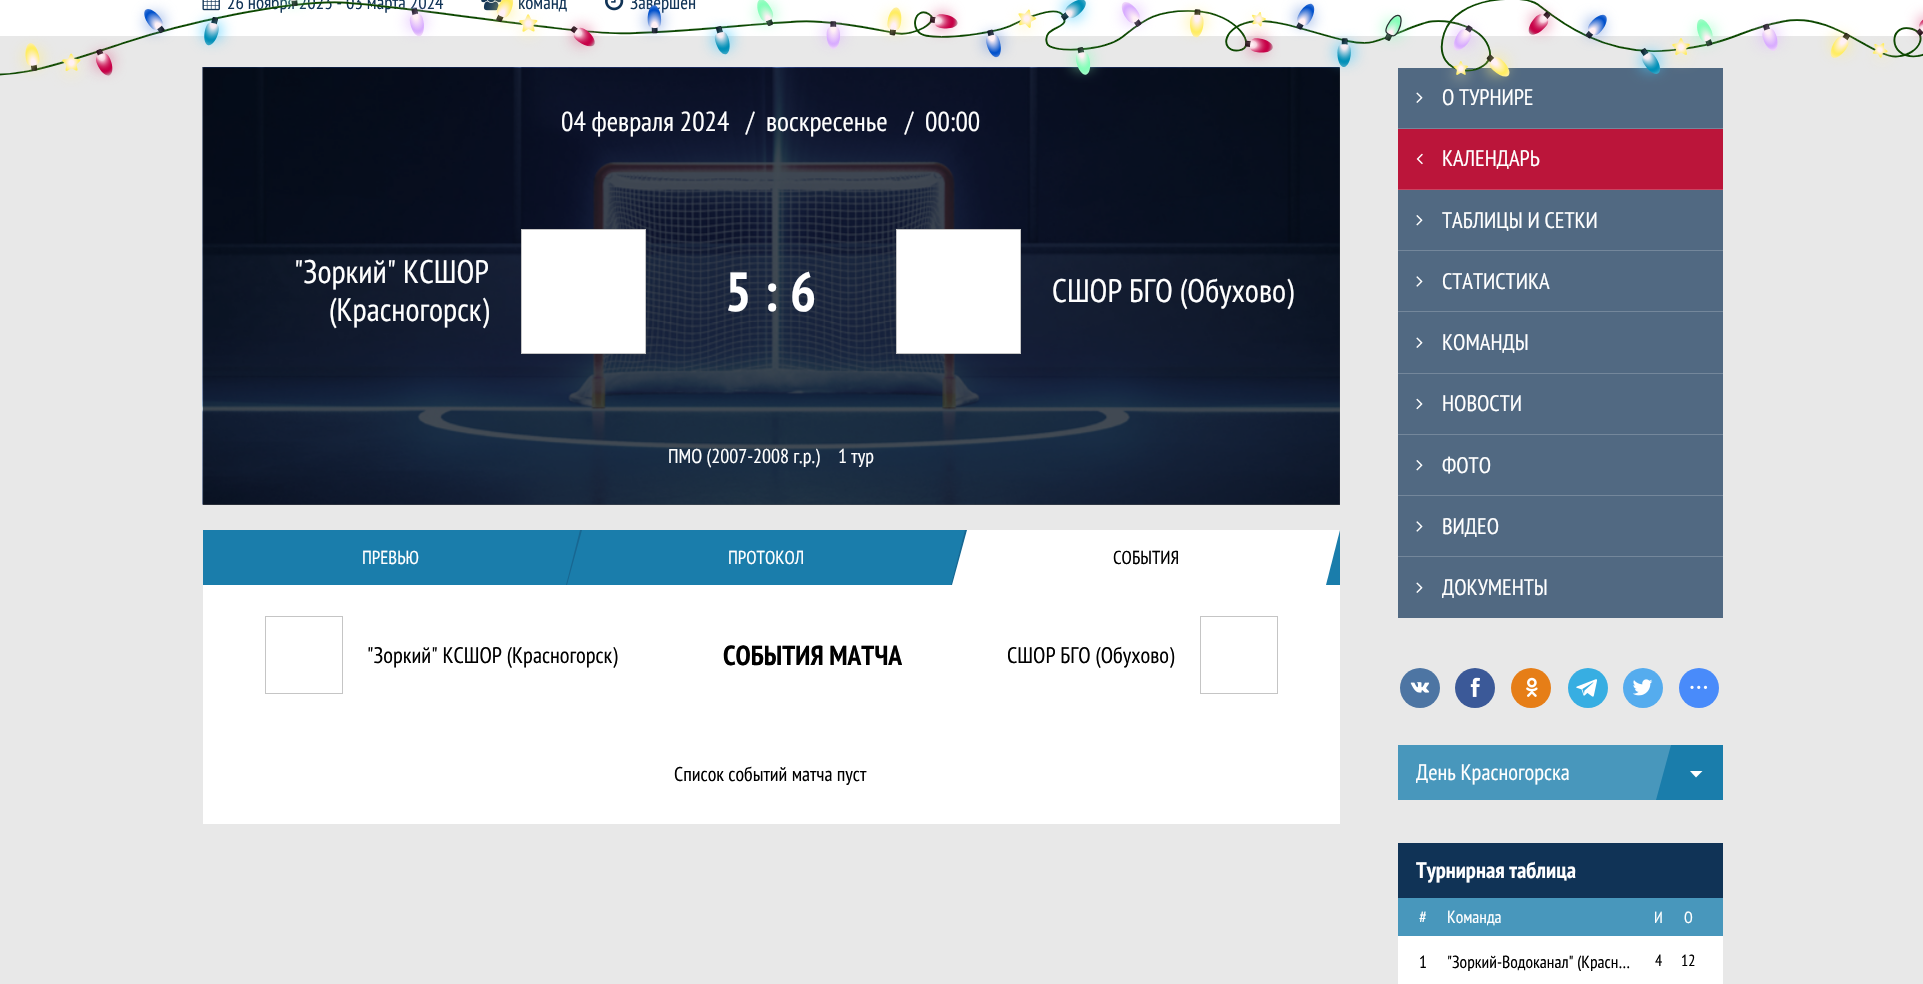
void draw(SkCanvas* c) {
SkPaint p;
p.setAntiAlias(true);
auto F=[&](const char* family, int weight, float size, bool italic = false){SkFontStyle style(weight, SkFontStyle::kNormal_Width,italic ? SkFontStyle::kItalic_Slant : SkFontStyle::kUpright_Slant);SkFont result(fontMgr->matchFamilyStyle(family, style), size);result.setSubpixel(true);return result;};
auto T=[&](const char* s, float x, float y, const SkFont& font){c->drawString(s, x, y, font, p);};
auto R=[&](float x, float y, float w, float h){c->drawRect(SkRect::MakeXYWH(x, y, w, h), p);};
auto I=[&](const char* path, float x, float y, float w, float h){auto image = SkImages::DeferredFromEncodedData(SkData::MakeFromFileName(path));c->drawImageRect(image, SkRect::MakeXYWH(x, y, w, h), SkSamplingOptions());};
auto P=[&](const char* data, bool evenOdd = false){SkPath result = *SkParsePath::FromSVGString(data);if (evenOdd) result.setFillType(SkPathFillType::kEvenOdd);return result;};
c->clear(0xffe8e8e8);
p.setColor(0xff5d5d5d);
R(203,68,1137,437);
p.setColor(0xffffffff);
R(0,0,1923,36);
I("2.png",202,0,18,11);
auto f1 = F("PT Sans Narrow",400,18.75);
p.setColor(0xff103356);
T("26 ноября 2023 - 03 марта 2024",227,9,f1);
I("3.png",481,0,21,11);
T("команд",518,9,f1);
I("4.png",605,0,19,11);
T("Завершён",630,9,f1);
I("5.png",202,67,1138,438);
p.setColor(0xff516982);
R(1398,68,325,550);
I("1.png",0,0,1923,88);
auto f2 = F("PT Sans Narrow",400,27.5);
p.setColor(0xffffffff);
T("04 февраля 2024",561,131,f2);
T("/",746,131,f2);
T("воскресенье",766,131,f2);
T("/",905,131,f2);
T("00:00",925,131,f2);
auto f3 = F("PT Sans Narrow",400,32.5);
T("\"Зоркий\" КСШОР",294,283,f3);
T("(Красногорск)",329,321,f3);
c->drawRect(SkRect::MakeXYWH(521.5,229.5,124,124),p);
p.setStroke(true);
p.setStrokeWidth(1);
p.setColor(0xffc5c5c5);
c->drawRect(SkRect::MakeXYWH(521.5,229.5,124,124),p);
auto f4 = F("PT Sans Narrow",700,55);
p.setStroke(false);
p.setColor(0xffffffff);
T("5",725,311,f4);
T(":",764,311,f4);
T("6",790,311,f4);
c->drawRect(SkRect::MakeXYWH(896.5,229.5,124,124),p);
p.setStroke(true);
p.setColor(0xffc5c5c5);
c->drawRect(SkRect::MakeXYWH(896.5,229.5,124,124),p);
p.setStroke(false);
p.setColor(0xffffffff);
T("СШОР БГО (Обухово)",1052,302,f3);
auto f5 = F("PT Sans Narrow",400,20);
T("ПМО (2007-2008 г.р.)",668,463,f5);
T("1 тур",838,463,f5);
p.setColor(0xff1a7dab);
R(203,530,1137,55);
p.setColor(0xff176792);
c->drawPath(P("M580 530h2l-15 55h-1z"),p);
p.setColor(0xffffffff);
T("ПРЕВЬЮ",362,564,f1);
p.setColor(0xff176792);
c->drawPath(P("M965 530h2l-15 55h-1z"),p);
p.setColor(0xffffffff);
T("ПРОТОКОЛ",728,564,f1);
c->drawPath(P("M967 530h373l-14 55h-374z"),p);
p.setColor(0xff000000);
T("СОБЫТИЯ",1113,564,f1);
p.setColor(0xffffffff);
R(203,585,1137,239);
p.setStroke(true);
p.setColor(0xffc5c5c5);
c->drawRect(SkRect::MakeXYWH(265.5,616.5,77,77),p);
auto f6 = F("PT Sans Narrow",400,22.5);
p.setStroke(false);
p.setColor(0xff000000);
T("\"Зоркий\" КСШОР (Красногорск)",367,663,f6);
auto f7 = F("PT Sans Narrow",700,27.5);
T("СОБЫТИЯ МАТЧА",723,665,f7);
T("СШОР БГО (Обухово)",1007,663,f6);
p.setStroke(true);
p.setColor(0xffc5c5c5);
c->drawRect(SkRect::MakeXYWH(1200.5,616.5,77,77),p);
p.setStroke(false);
p.setColor(0xff000000);
T("Список событий матча пуст",674,781,f5);
p.setColor(0xff74879b);
R(1398,128,325,1);
I("6.png",1416,92,7,11);
p.setColor(0xffffffff);
T("О ТУРНИРЕ",1442,105,f6);
p.setColor(0xffbb153a);
R(1398,129,325,60);
p.setColor(0xffc94461);
R(1398,189,325,1);
I("7.png",1416,153,7,12);
p.setColor(0xffffffff);
T("КАЛЕНДАРЬ",1442,166,f6);
p.setColor(0xff74879b);
R(1398,250,325,1);
I("8.png",1416,215,7,11);
p.setColor(0xffffffff);
T("ТАБЛИЦЫ И СЕТКИ",1442,228,f6);
p.setColor(0xff74879b);
R(1398,311,325,1);
I("9.png",1416,276,7,11);
p.setColor(0xffffffff);
T("СТАТИСТИКА",1442,289,f6);
p.setColor(0xff74879b);
R(1398,373,325,1);
I("6.png",1416,337,7,11);
p.setColor(0xffffffff);
T("КОМАНДЫ",1442,350,f6);
p.setColor(0xff74879b);
R(1398,434,325,1);
I("10.png",1416,398,7,12);
p.setColor(0xffffffff);
T("НОВОСТИ",1442,411,f6);
p.setColor(0xff74879b);
R(1398,495,325,1);
I("8.png",1416,460,7,11);
p.setColor(0xffffffff);
T("ФОТО",1442,473,f6);
p.setColor(0xff74879b);
R(1398,556,325,1);
I("9.png",1416,521,7,11);
p.setColor(0xffffffff);
T("ВИДЕО",1442,534,f6);
I("6.png",1416,582,7,11);
T("ДОКУМЕНТЫ",1442,595,f6);
p.setColor(0xff4d75a3);
c->drawCircle(1420,688,20,p);
I("11.png",1410,682,20,11);
p.setColor(0xff3b5998);
c->drawCircle(1475,688,20,p);
I("12.png",1470,677,10,20);
p.setColor(0xffe67e17);
c->drawCircle(1531,688,20,p);
I("13.png",1526,677,12,20);
p.setColor(0xff37aee2);
c->drawCircle(1588,688,20,p);
I("14.png",1576,679,21,18);
p.setColor(0xff55acee);
c->drawCircle(1643,688,20,p);
I("15.png",1633,679,20,17);
p.setColor(0xff498bfa);
c->drawCircle(1699,688,20,p);
I("16.png",1690,685,18,4);
p.setColor(0xff1a7dab);
R(1656,745,67,55);
p.setColor(0xff4897bc);
R(1398,745,246,55);
c->save();
c->clipRect(SkRect::MakeXYWH(1416,745,244,55));
p.setColor(0xffffffff);
T("День Красногорска",1416,780,f6);
c->restore();
p.setColor(0xff4897bc);
c->drawPath(P("M1644 745h27l-15 55h-12z"),p);
p.setColor(0xffffffff);
c->drawPath(P("M1690 771h12.5l-6.5 6.5z"),p);
R(1398,936,325,48);
p.setColor(0xff103356);
R(1398,843,325,55);
auto f8 = F("PT Sans Narrow",700,22.5);
p.setColor(0xffffffff);
T("Турнирная таблица",1416,878,f8);
p.setColor(0xff4897bc);
R(1398,898,325,38);
auto f9 = F("PT Sans Narrow",400,17.5);
p.setColor(0xffffffff);
T("#",1419,923,f9);
T("Команда",1447,923,f9);
auto f10 = F("PT Sans Narrow",400,16);
T("И",1654,923,f10);
T("О",1684,923,f10);
p.setColor(0xff000000);
T("1",1419,968,f9);
c->save();
c->clipRect(SkRect::MakeXYWH(1446,951,185,20));
T("\"Зоркий-Водоканал\" (Красн…",1447,968,f9);
c->restore();
T("4",1655,966,f10);
T("12",1681,966,f10);
}
